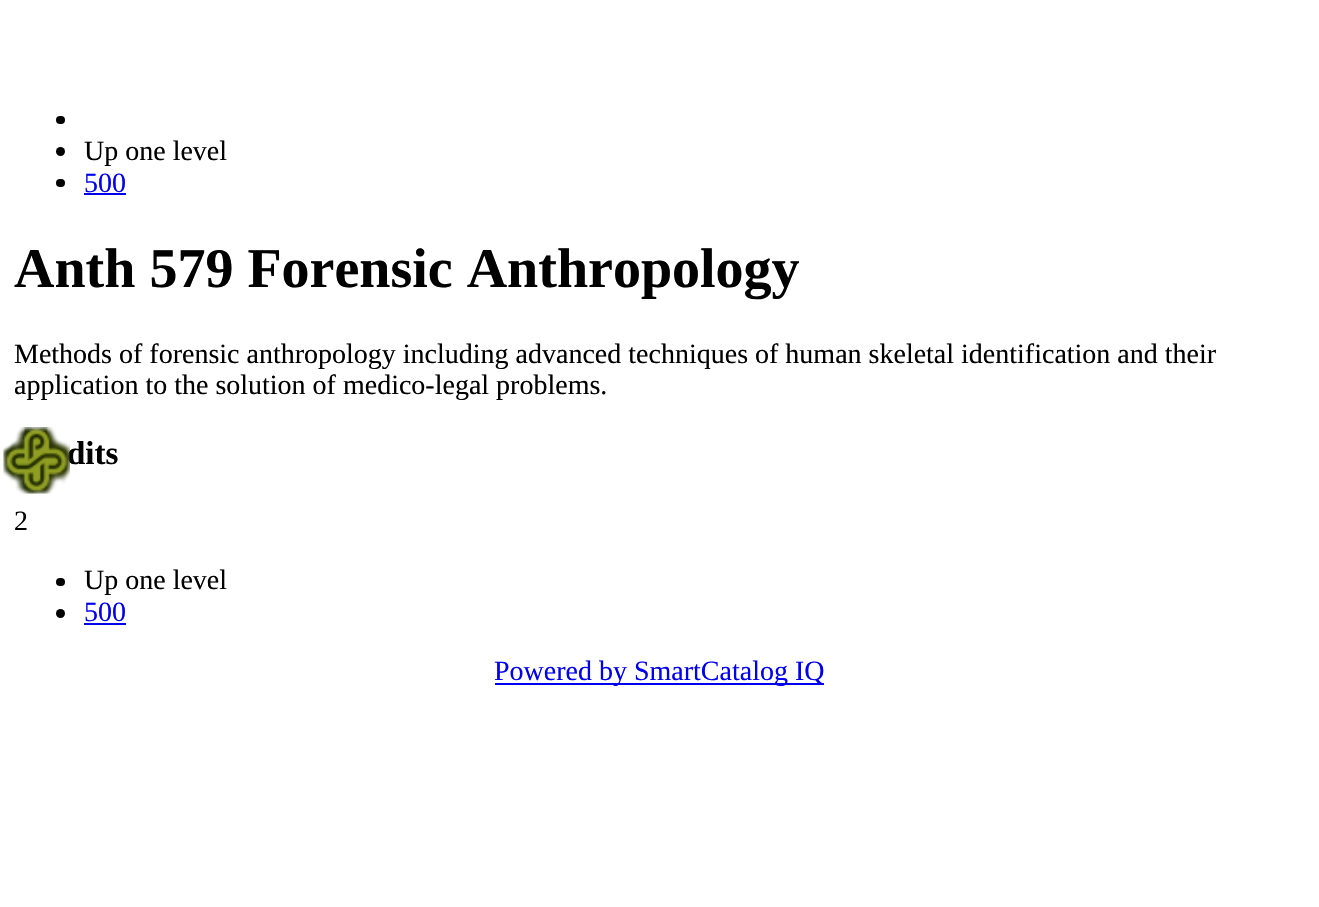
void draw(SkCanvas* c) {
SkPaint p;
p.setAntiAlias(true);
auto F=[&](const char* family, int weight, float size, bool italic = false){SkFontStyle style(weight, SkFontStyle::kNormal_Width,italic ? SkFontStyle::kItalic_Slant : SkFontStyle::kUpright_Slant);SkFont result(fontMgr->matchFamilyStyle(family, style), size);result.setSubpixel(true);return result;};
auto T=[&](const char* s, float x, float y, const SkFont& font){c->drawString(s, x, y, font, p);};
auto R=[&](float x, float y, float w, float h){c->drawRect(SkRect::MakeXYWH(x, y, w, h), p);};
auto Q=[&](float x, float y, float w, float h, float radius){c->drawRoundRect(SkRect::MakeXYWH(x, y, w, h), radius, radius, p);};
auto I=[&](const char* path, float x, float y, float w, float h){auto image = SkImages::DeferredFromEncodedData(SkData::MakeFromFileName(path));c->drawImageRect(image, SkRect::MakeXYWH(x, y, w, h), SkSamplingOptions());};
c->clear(0xffffffff);
p.setColor(0xff000000);
Q(56,116,9,8,4);
c->drawCircle(60.5,151.5,4.5,p);
auto f1 = F("Liberation Serif",400,28);
T("Up one level",84,160,f1);
Q(56,179,9,8,4);
p.setColor(0xff0000ee);
T("500",84,192,f1);
R(84,193,42,2);
auto f2 = F("Liberation Serif",700,33);
p.setColor(0xff000000);
T("dits",67,464,f2);
I("1.png",3,427,67,67);
auto f3 = F("Liberation Serif",700,56);
T("Anth 579 Forensic Anthropology",14,287,f3);
T("Methods of forensic anthropology including advanced techniques of human skeletal identification and their",14,363,f1);
T("application to the solution of medico-legal problems.",14,394,f1);
T("2",14,530,f1);
Q(56,578,9,8,4);
T("Up one level",84,589,f1);
c->drawCircle(60.5,613.5,4.5,p);
p.setColor(0xff0000ee);
T("500",84,621,f1);
R(84,623,42,2);
R(495,683,329,2);
T("Powered by SmartCatalog IQ",494,680,f1);
}
